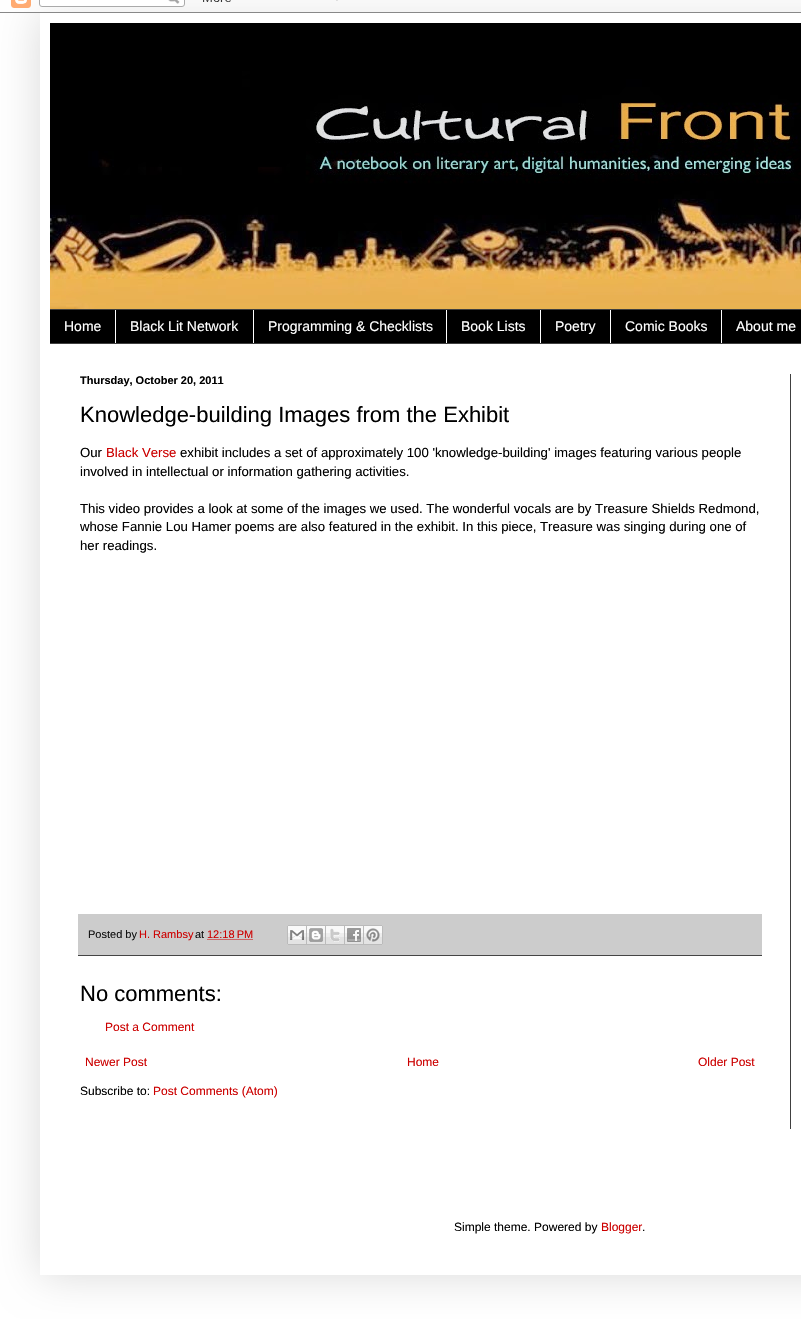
void draw(SkCanvas* c) {
SkPaint p;
p.setAntiAlias(true);
auto F=[&](const char* family, int weight, float size, bool italic = false){SkFontStyle style(weight, SkFontStyle::kNormal_Width,italic ? SkFontStyle::kItalic_Slant : SkFontStyle::kUpright_Slant);SkFont result(fontMgr->matchFamilyStyle(family, style), size);result.setSubpixel(true);return result;};
auto T=[&](const char* s, float x, float y, const SkFont& font){c->drawString(s, x, y, font, p);};
auto R=[&](float x, float y, float w, float h){c->drawRect(SkRect::MakeXYWH(x, y, w, h), p);};
auto I=[&](const char* path, float x, float y, float w, float h){auto image = SkImages::DeferredFromEncodedData(SkData::MakeFromFileName(path));c->drawImageRect(image, SkRect::MakeXYWH(x, y, w, h), SkSamplingOptions());};
auto P=[&](const char* data, bool evenOdd = false){SkPath result = *SkParsePath::FromSVGString(data);if (evenOdd) result.setFillType(SkPathFillType::kEvenOdd);return result;};
c->clear(0xffffffff);
c->save();
c->clipPath(P("M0 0h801v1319h-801zm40 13h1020v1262h-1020z",true),true);
p.setColor(0x26000000);
p.setMaskFilter(SkMaskFilter::MakeBlur(kNormal_SkBlurStyle, 20));
c->drawRect(SkRect::MakeXYWH(40,13,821,1262),p);
p.setMaskFilter(nullptr);
c->restore();
I("1.png",0,0,801,13);
I("2.png",50,23,751,286);
p.setColor(0xff000000);
R(50,310,751,33);
p.setColor(0xff404040);
R(50,309,751,1);
R(50,343,751,1);
auto f1 = F("Liberation Sans",400,14);
p.setColor(0xffffffff);
T("Home",64,331,f1);
R(115,310,1,33);
T("Black Lit Network",130,331,f1);
R(253,310,1,33);
T("Programming & Checklists",268,331,f1);
R(446,310,1,33);
T("Book Lists",461,331,f1);
R(540,310,1,33);
T("Poetry",555,331,f1);
R(610,310,1,33);
T("Comic Books",625,331,f1);
R(721,310,1,33);
T("About me",736,331,f1);
auto f2 = F("Liberation Sans",700,11);
p.setColor(0xff000000);
T("Thursday, October 20, 2011",80,384,f2);
auto f3 = F("Liberation Sans",400,22);
T("Knowledge-building Images from the Exhibit",80,422,f3);
auto f4 = F("Liberation Sans",400,13.2);
T("Our",80,457,f4);
p.setColor(0xffcc0000);
T("Black Verse",106,457,f4);
p.setColor(0xff000000);
T("exhibit includes a set of approximately 100 'knowledge-building' images featuring various people",180,457,f4);
T("involved in intellectual or information gathering activities.",80,476,f4);
T("This video provides a look at some of the images we used. The wonderful vocals are by Treasure Shields Redmond,",80,513,f4);
T("whose Fannie Lou Hamer poems are also featured in the exhibit. In this piece, Treasure was singing during one of",80,531,f4);
T("her readings.",80,550,f4);
p.setColor(0xffcccccc);
R(78,914,684,41);
p.setColor(0xff444444);
R(78,955,684,1);
auto f5 = F("Liberation Sans",400,11);
p.setColor(0xff111111);
T("Posted by",88,938,f5);
p.setColor(0xffcc0000);
T("H. Rambsy",139,938,f5);
p.setColor(0xff111111);
T("at",195,938,f5);
p.setColor(0xffcc0000);
T("12:18 PM",207,938,f5);
p.setStroke(true);
p.setStrokeWidth(1);
p.setPathEffect(SkDashPathEffect::Make({{1,1}}, 0));
c->drawPath(P("M207.5 939.5h45.5"),p);
p.setPathEffect(nullptr);
I("3.png",287,925,20,20);
I("4.png",307,925,19,20);
I("5.png",326,925,19,20);
I("6.png",345,925,19,20);
I("7.png",364,925,19,20);
p.setStroke(false);
p.setColor(0xff000000);
T("No comments:",80,1001,f3);
auto f6 = F("Liberation Sans",400,12);
p.setColor(0xffcc0000);
T("Post a Comment",105,1031,f6);
T("Newer Post",85,1066,f6);
T("Home",407,1066,f6);
T("Older Post",698,1066,f6);
p.setColor(0xff000000);
T("Subscribe to:",80,1095,f6);
p.setColor(0xffcc0000);
T("Post Comments (Atom)",153,1095,f6);
p.setColor(0xff404040);
R(790,374,1,755);
p.setColor(0xff000000);
T("Simple theme. Powered by",454,1231,f6);
p.setColor(0xffcc0000);
T("Blogger",601,1231,f6);
p.setColor(0xff000000);
T(".",642,1231,f6);
}
